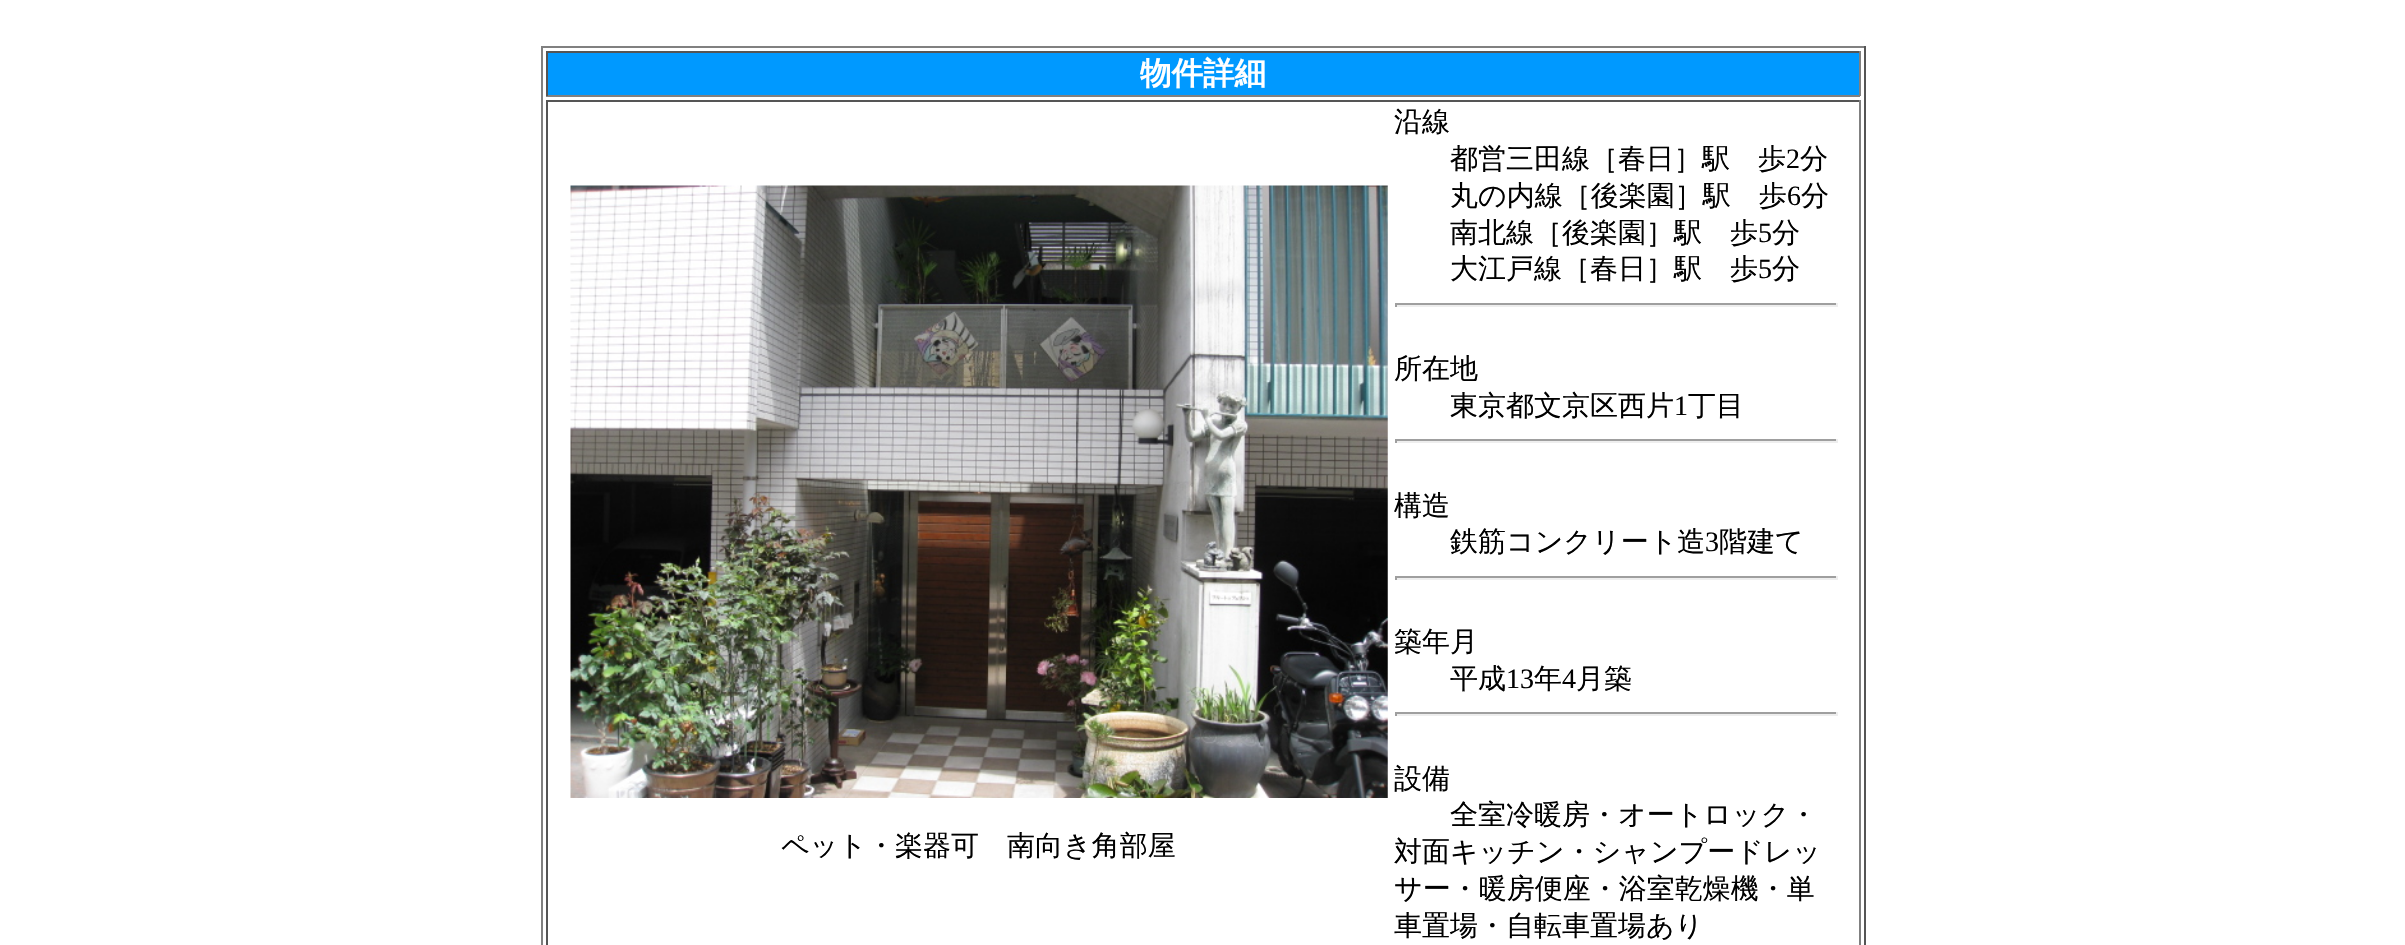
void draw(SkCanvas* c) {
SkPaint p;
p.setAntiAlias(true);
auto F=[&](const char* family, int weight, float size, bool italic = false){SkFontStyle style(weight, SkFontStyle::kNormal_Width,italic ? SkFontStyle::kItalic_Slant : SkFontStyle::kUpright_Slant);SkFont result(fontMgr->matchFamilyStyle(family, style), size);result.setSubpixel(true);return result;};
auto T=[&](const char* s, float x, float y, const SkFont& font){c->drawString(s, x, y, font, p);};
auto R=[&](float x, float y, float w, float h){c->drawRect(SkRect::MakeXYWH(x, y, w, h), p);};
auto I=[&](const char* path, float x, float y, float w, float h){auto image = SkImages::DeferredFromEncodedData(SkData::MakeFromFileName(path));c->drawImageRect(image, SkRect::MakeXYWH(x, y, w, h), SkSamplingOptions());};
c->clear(0xffffffff);
p.setColor(0xff808080);
R(541,46,1325,2);
p.setColor(0xff555555);
R(1864,46,2,899);
p.setColor(0xff808080);
R(541,46,2,899);
p.setColor(0xff0099ff);
R(548,53,1311,42);
p.setColor(0xff555555);
R(546,51,1314,2);
p.setColor(0xff808080);
R(1859,51,2,45);
R(546,95,1314,2);
p.setColor(0xff555555);
R(546,51,2,45);
auto f1 = F("WenQuanYi Zen Hei",700,31.5);
p.setColor(0xffffffff);
T("物件詳細",1140,84,f1);
p.setColor(0xff555555);
R(546,100,1314,2);
p.setColor(0xff808080);
R(1859,100,2,845);
p.setColor(0xff555555);
R(546,100,2,845);
I("1.png",570,185,818,613);
auto f2 = F("WenQuanYi Zen Hei",500,28);
p.setColor(0xff000000);
T("ペット・楽器可　南向き角部屋",781,855,f2);
T("沿線",1394,131,f2);
T("都営三田線［春日］駅　歩",1450,168,f2);
auto f3 = F("Liberation Serif",400,28);
T("2",1786,168,f3);
T("分",1800,168,f2);
T("丸の内線［後楽園］駅　歩",1450,205,f2);
T("6",1787,205,f3);
T("分",1801,205,f2);
T("南北線［後楽園］駅　歩",1450,242,f2);
T("5",1758,242,f3);
T("分",1772,242,f2);
T("大江戸線［春日］駅　歩",1450,278,f2);
T("5",1758,278,f3);
T("分",1772,278,f2);
p.setColor(0xff9f9f9f);
R(1395,303,443,2);
p.setColor(0xffeeeeee);
R(1836,303,2,4);
R(1395,305,443,2);
p.setColor(0xff9f9f9f);
R(1395,303,2,4);
p.setColor(0xff000000);
T("所在地",1394,378,f2);
T("東京都文京区西片",1450,415,f2);
T("1",1674,415,f3);
T("丁目",1688,415,f2);
p.setColor(0xff9f9f9f);
R(1395,439,443,2);
p.setColor(0xffeeeeee);
R(1836,439,2,4);
R(1395,441,443,2);
p.setColor(0xff9f9f9f);
R(1395,439,2,4);
p.setColor(0xff000000);
T("構造",1394,515,f2);
T("鉄筋コンクリート造",1450,551,f2);
T("3",1705,551,f3);
T("階建て",1719,551,f2);
p.setColor(0xff9f9f9f);
R(1395,576,443,2);
p.setColor(0xffeeeeee);
R(1836,576,2,4);
R(1395,578,443,2);
p.setColor(0xff9f9f9f);
R(1395,576,2,4);
p.setColor(0xff000000);
T("築年月",1394,651,f2);
T("平成",1450,688,f2);
T("13",1506,688,f3);
T("年",1534,688,f2);
T("4",1562,688,f3);
T("月築",1576,688,f2);
p.setColor(0xff9f9f9f);
R(1395,712,443,2);
p.setColor(0xffeeeeee);
R(1836,712,2,4);
R(1395,714,443,2);
p.setColor(0xff9f9f9f);
R(1395,712,2,4);
p.setColor(0xff000000);
T("設備",1394,788,f2);
T("全室冷暖房・オートロック・",1450,824,f2);
T("対面キッチン・シャンプードレッ",1394,861,f2);
T("サー・暖房便座・浴室乾燥機・単",1394,898,f2);
T("車置場・自転車置場あり",1394,935,f2);
}
